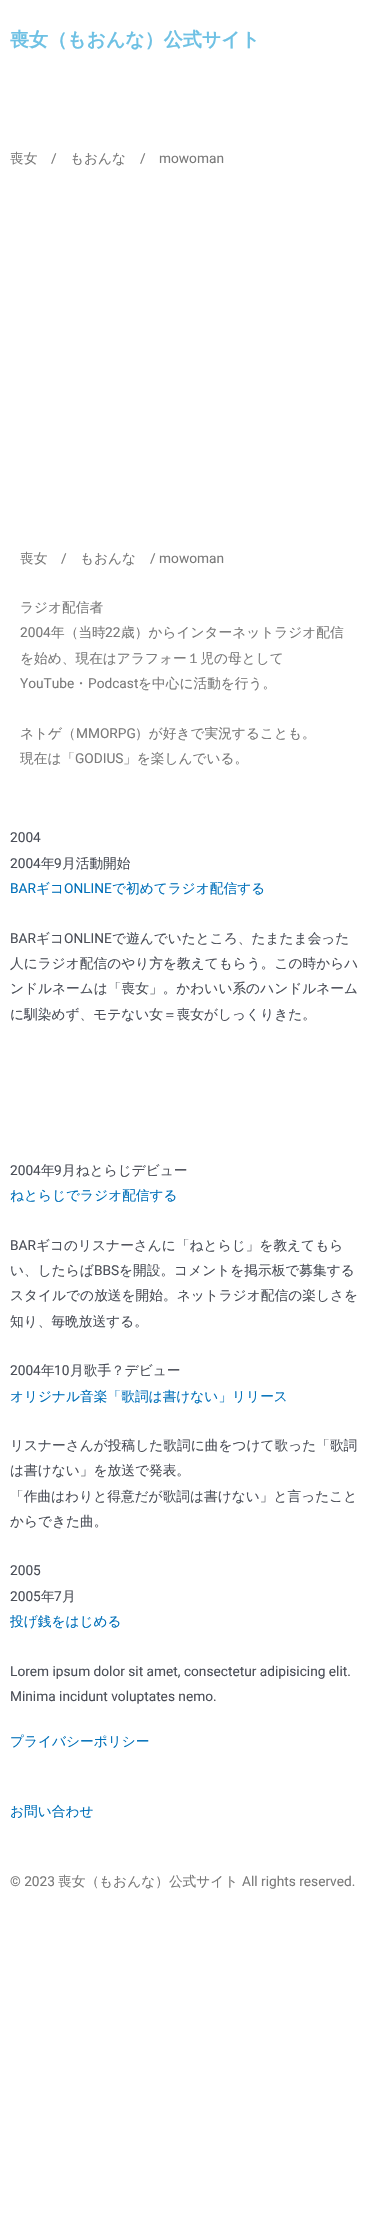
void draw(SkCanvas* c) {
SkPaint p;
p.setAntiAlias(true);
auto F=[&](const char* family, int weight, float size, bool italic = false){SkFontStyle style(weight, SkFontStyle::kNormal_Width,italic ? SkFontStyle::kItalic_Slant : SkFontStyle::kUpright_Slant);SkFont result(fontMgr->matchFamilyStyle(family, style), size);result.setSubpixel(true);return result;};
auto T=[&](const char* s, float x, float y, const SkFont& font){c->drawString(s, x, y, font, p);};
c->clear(0xffffffff);
auto f1 = F("WenQuanYi Zen Hei",700,19);
p.setColor(0xff6ec1e4);
T("喪女（もおんな）公式サイト",10,46,f1);
auto f2 = F("WenQuanYi Zen Hei",500,13.7);
p.setColor(0xff7a7a7a);
T("喪女",10,163,f2);
auto f3 = F("Roboto",400,13.7);
T("/",51,163,f3);
T("もおんな",70,163,f2);
T("/",140,163,f3);
T("mowoman",159,163,f3);
T("喪女",20,563,f2);
T("/",61,563,f3);
T("もおんな",80,563,f2);
T("/ mowoman",150,563,f3);
T("ラジオ配信者",20,612,f2);
T("2004",20,637,f3);
T("年（当時",51,637,f2);
T("22",105,637,f3);
T("歳）からインターネットラジオ配信",121,637,f2);
T("を始め、現在はアラフォー１児の母として",20,663,f2);
T("YouTube",20,688,f3);
T("・",74,688,f2);
T("Podcast",88,688,f3);
T("を中心に活動を行う。",138,688,f2);
T("ネトゲ（",20,738,f2);
T("MMORPG",76,738,f3);
T("）が好きで実況することも。",135,738,f2);
T("現在は「",20,763,f2);
T("GODIUS",75,763,f3);
T("」を楽しんでいる。",123,763,f2);
p.setColor(0xff4b4f58);
T("2004",10,842,f3);
T("2004",10,868,f3);
T("年",41,868,f2);
T("9",54,868,f3);
T("月活動開始",62,868,f2);
p.setColor(0xff0170b9);
T("BAR",10,893,f3);
T("ギコ",36,893,f2);
T("ONLINE",64,893,f3);
T("で初めてラジオ配信する",112,893,f2);
p.setColor(0xff4b4f58);
T("BAR",10,943,f3);
T("ギコ",36,943,f2);
T("ONLINE",64,943,f3);
T("で遊んでいたところ、たまたま会った",112,943,f2);
T("人にラジオ配信のやり方を教えてもらう。この時からハ",10,968,f2);
T("ンドルネームは「喪女」。かわいい系のハンドルネーム",10,993,f2);
T("に馴染めず、モテない女＝喪女がしっくりきた。",10,1019,f2);
T("2004",10,1175,f3);
T("年",41,1175,f2);
T("9",54,1175,f3);
T("月ねとらじデビュー",62,1175,f2);
p.setColor(0xff0170b9);
T("ねとらじでラジオ配信する",10,1200,f2);
p.setColor(0xff4b4f58);
T("BAR",10,1250,f3);
T("ギコのリスナーさんに「ねとらじ」を教えてもら",36,1250,f2);
T("い、したらば",10,1275,f2);
T("BBS",94,1275,f3);
T("を開設。コメントを掲示板で募集する",119,1275,f2);
T("スタイルでの放送を開始。ネットラジオ配信の楽しさを",10,1300,f2);
T("知り、毎晩放送する。",10,1326,f2);
T("2004",10,1375,f3);
T("年",41,1375,f2);
T("10",54,1375,f3);
T("月歌手？デビュー",70,1375,f2);
p.setColor(0xff0170b9);
T("オリジナル音楽「歌詞は書けない」リリース",10,1401,f2);
p.setColor(0xff4b4f58);
T("リスナーさんが投稿した歌詞に曲をつけて歌った「歌詞",10,1450,f2);
T("は書けない」を放送で発表。",10,1475,f2);
T("「作曲はわりと得意だが歌詞は書けない」と言ったこと",10,1501,f2);
T("からできた曲。",10,1526,f2);
T("2005",10,1575,f3);
T("2005",10,1601,f3);
T("年",41,1601,f2);
T("7",54,1601,f3);
T("月",62,1601,f2);
p.setColor(0xff0170b9);
T("投げ銭をはじめる",10,1626,f2);
p.setColor(0xff4b4f58);
T("Lorem ipsum dolor sit amet, consectetur adipisicing elit.",10,1676,f3);
T("Minima incidunt voluptates nemo.",10,1701,f3);
p.setColor(0xff0170b9);
T("プライバシーポリシー",10,1746,f2);
T("お問い合わせ",10,1816,f2);
p.setColor(0xff7a7a7a);
T("© 2023",10,1886,f3);
T("喪女（もおんな）公式サイト",58,1886,f2);
T("All rights reserved.",242,1886,f3);
}
